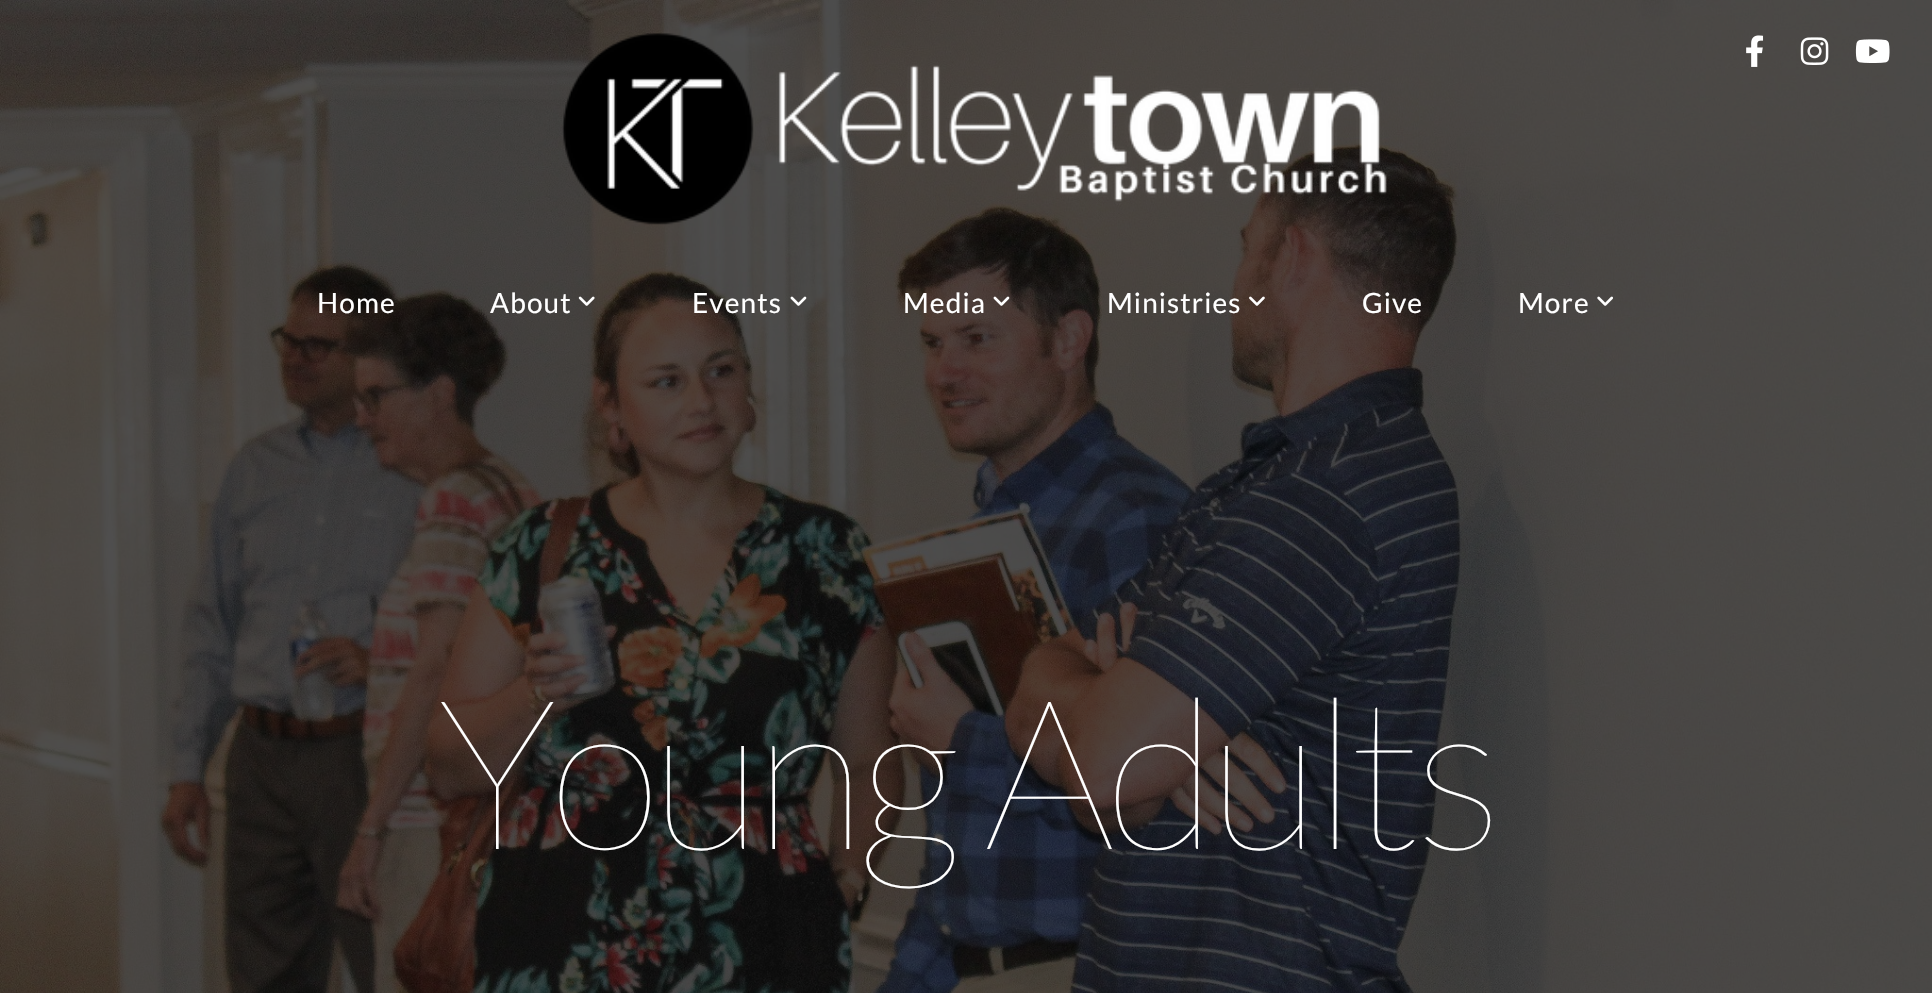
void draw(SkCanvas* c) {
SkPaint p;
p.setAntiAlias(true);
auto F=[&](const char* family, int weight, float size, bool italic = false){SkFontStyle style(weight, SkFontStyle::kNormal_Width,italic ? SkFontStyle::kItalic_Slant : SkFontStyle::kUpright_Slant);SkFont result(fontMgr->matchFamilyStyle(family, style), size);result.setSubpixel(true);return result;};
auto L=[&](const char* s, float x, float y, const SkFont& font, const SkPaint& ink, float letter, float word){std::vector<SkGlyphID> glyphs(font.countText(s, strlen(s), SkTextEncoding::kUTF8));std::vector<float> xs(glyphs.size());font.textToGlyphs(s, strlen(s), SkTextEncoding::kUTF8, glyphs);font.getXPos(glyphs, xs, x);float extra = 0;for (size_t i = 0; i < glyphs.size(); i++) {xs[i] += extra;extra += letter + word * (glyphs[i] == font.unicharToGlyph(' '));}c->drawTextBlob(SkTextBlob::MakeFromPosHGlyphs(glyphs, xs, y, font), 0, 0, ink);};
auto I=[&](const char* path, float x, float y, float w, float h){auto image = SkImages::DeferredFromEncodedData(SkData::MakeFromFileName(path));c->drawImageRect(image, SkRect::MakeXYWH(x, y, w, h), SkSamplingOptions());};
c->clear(0xffffffff);
I("10.png",0,0,1932,993);
I("1.png",562,33,825,192);
I("2.png",1746,35,18,32);
I("3.png",1800,37,29,28);
I("4.png",1855,39,35,24);
auto f1 = F("Lato",400,28);
p.setColor(0xffffffff);
L("Home",317,313,f1,p,1.1,0);
L("About",490,313,f1,p,1.1,0);
I("5.png",578,296,17,10);
L("Events",692,313,f1,p,1.1,0);
I("6.png",790,296,17,10);
L("Media",903,313,f1,p,1.1,0);
I("7.png",993,296,17,10);
L("Ministries",1107,313,f1,p,1.1,0);
I("8.png",1249,296,16,10);
L("Give",1362,313,f1,p,1.1,0);
L("More",1518,313,f1,p,1.1,0);
I("9.png",1597,296,16,10);
auto f2 = F("Lato",100,210);
L("Young Adults",437,849,f2,p,-8.4,0);
}
